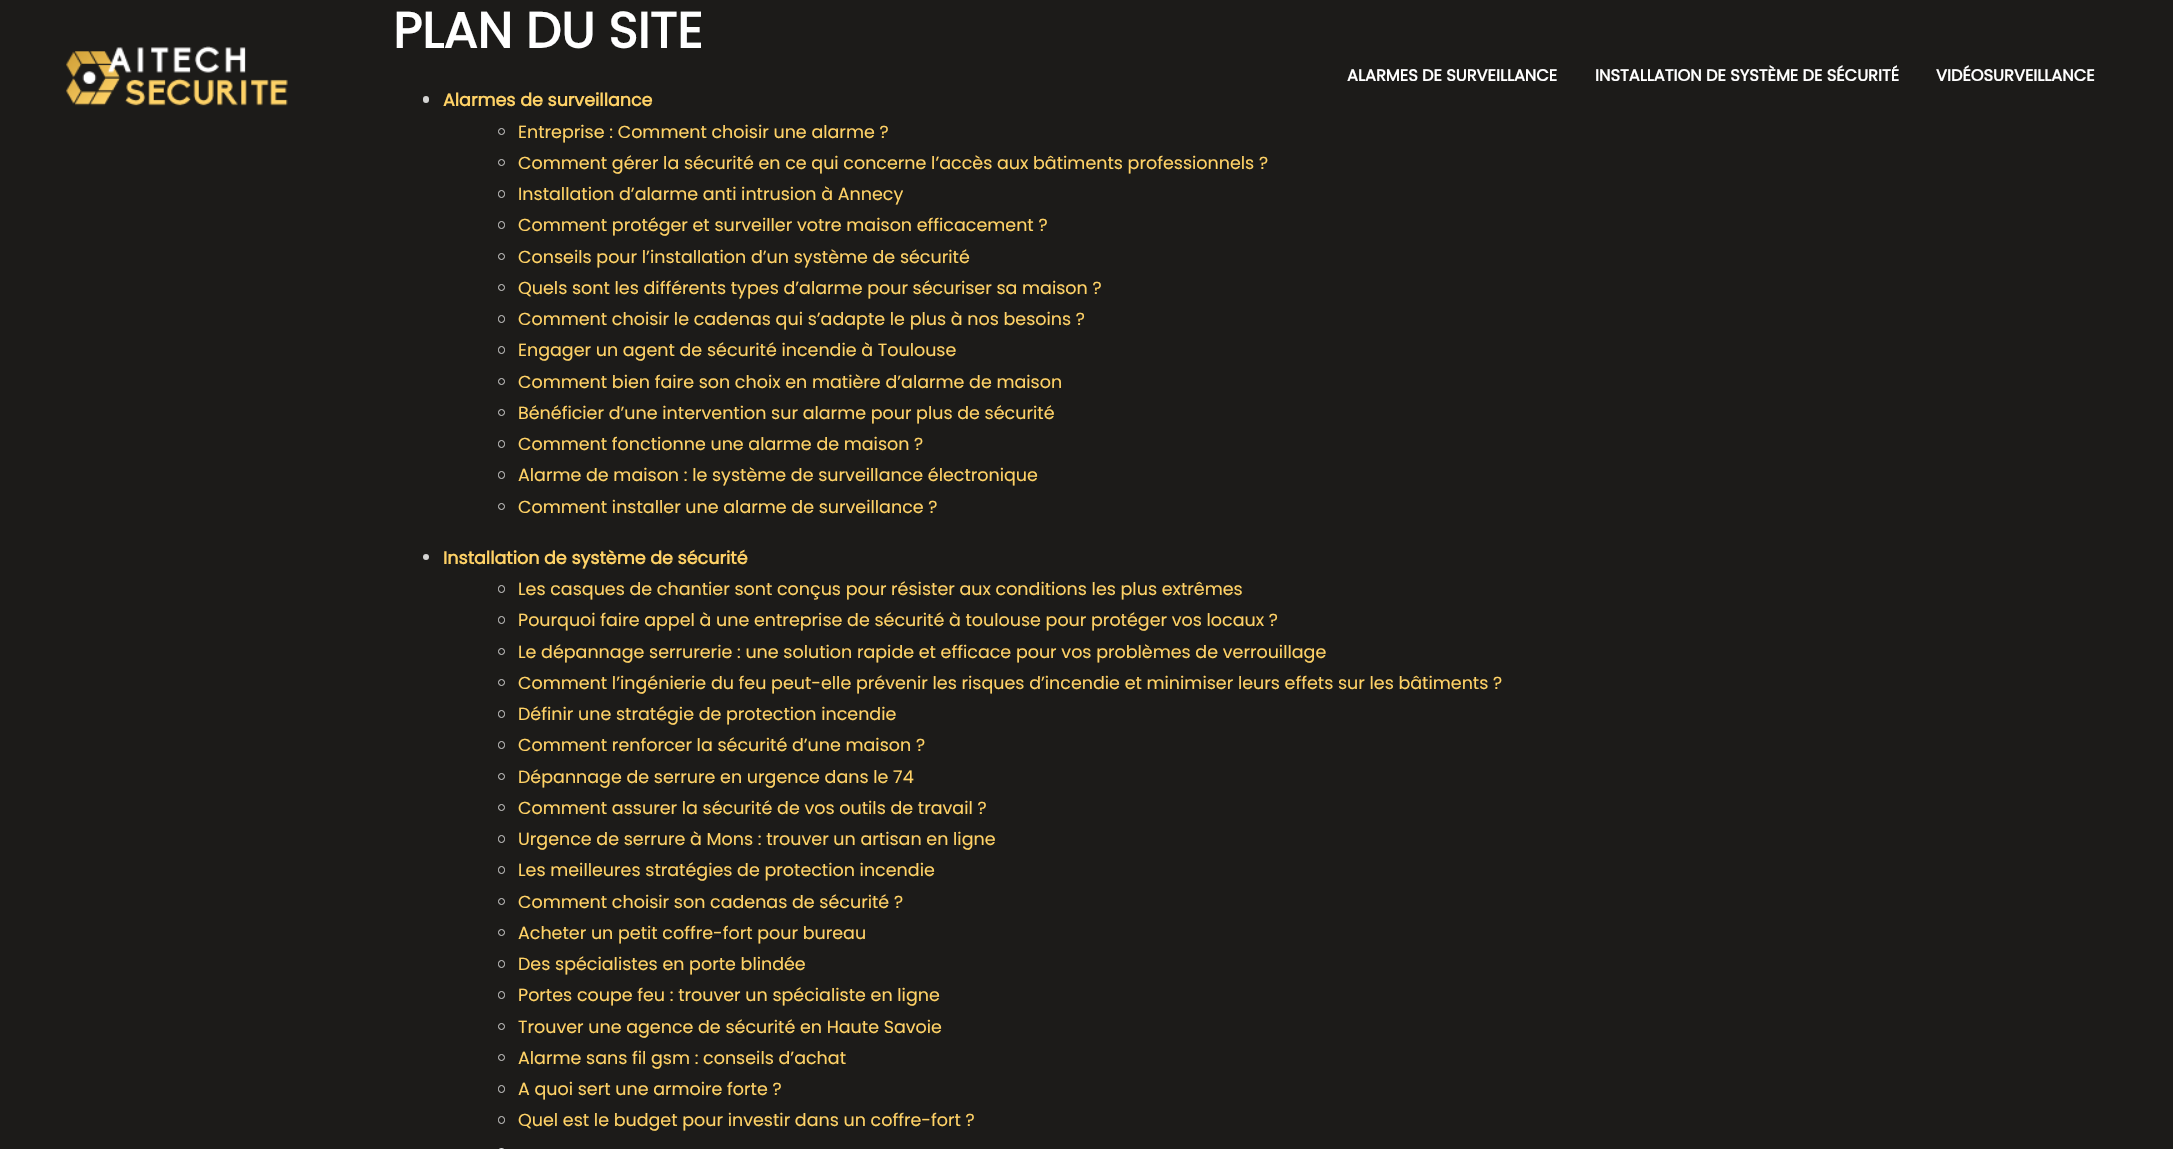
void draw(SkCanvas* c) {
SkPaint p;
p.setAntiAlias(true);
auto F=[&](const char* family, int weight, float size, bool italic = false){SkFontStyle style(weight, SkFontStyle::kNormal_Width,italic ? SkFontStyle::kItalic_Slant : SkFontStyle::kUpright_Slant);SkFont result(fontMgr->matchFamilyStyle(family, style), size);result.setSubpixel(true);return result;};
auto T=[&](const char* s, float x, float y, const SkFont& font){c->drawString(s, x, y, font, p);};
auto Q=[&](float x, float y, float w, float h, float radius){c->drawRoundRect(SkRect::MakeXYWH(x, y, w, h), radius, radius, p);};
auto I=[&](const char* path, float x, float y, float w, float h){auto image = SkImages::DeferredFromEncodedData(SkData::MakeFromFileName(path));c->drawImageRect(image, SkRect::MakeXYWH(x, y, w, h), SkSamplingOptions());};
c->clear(0xff1c1b19);
auto f1 = F("Poppins",700,50);
p.setColor(0xffffffff);
T("PLAN DU SITE",393,48,f1);
p.setColor(0xffd4d4d3);
Q(423,96,6,7,3);
auto f2 = F("Poppins",700,17.5);
p.setColor(0xffffd266);
T("Alarmes de surveillance",443,106,f2);
p.setStroke(true);
p.setStrokeWidth(1);
p.setColor(0xffd4d4d3);
c->drawCircle(501.5,131.5,3,p);
auto f3 = F("Poppins",400,17.5);
p.setStroke(false);
p.setColor(0xffffd266);
T("Entreprise : Comment choisir une alarme ?",518,138,f3);
p.setStroke(true);
p.setColor(0xffd4d4d3);
c->drawCircle(501.5,162.5,3,p);
p.setStroke(false);
p.setColor(0xffffd266);
T("Comment gérer la sécurité en ce qui concerne l’accès aux bâtiments professionnels ?",518,169,f3);
p.setStroke(true);
p.setColor(0xffd4d4d3);
c->drawRoundRect(SkRect::MakeXYWH(498.5,190.5,6,7),3,3,p);
p.setStroke(false);
p.setColor(0xffffd266);
T("Installation d’alarme anti intrusion à Annecy",518,200,f3);
p.setStroke(true);
p.setColor(0xffd4d4d3);
c->drawRoundRect(SkRect::MakeXYWH(498.5,221.5,6,7),3,3,p);
p.setStroke(false);
p.setColor(0xffffd266);
T("Comment protéger et surveiller votre maison efficacement ?",518,231,f3);
p.setStroke(true);
p.setColor(0xffd4d4d3);
c->drawCircle(501.5,256.5,3,p);
p.setStroke(false);
p.setColor(0xffffd266);
T("Conseils pour l’installation d’un système de sécurité",518,263,f3);
p.setStroke(true);
p.setColor(0xffd4d4d3);
c->drawCircle(501.5,287.5,3,p);
p.setStroke(false);
p.setColor(0xffffd266);
T("Quels sont les différents types d’alarme pour sécuriser sa maison ?",518,294,f3);
p.setStroke(true);
p.setColor(0xffd4d4d3);
c->drawRoundRect(SkRect::MakeXYWH(498.5,315.5,6,7),3,3,p);
p.setStroke(false);
p.setColor(0xffffd266);
T("Comment choisir le cadenas qui s’adapte le plus à nos besoins ?",518,325,f3);
p.setStroke(true);
p.setColor(0xffd4d4d3);
c->drawRoundRect(SkRect::MakeXYWH(498.5,346.5,6,7),3,3,p);
p.setStroke(false);
p.setColor(0xffffd266);
T("Engager un agent de sécurité incendie à Toulouse",518,356,f3);
p.setStroke(true);
p.setColor(0xffd4d4d3);
c->drawCircle(501.5,381.5,3,p);
p.setStroke(false);
p.setColor(0xffffd266);
T("Comment bien faire son choix en matière d’alarme de maison",518,388,f3);
p.setStroke(true);
p.setColor(0xffd4d4d3);
c->drawCircle(501.5,412.5,3,p);
p.setStroke(false);
p.setColor(0xffffd266);
T("Bénéficier d’une intervention sur alarme pour plus de sécurité",518,419,f3);
p.setStroke(true);
p.setColor(0xffd4d4d3);
c->drawRoundRect(SkRect::MakeXYWH(498.5,440.5,6,7),3,3,p);
p.setStroke(false);
p.setColor(0xffffd266);
T("Comment fonctionne une alarme de maison ?",518,450,f3);
p.setStroke(true);
p.setColor(0xffd4d4d3);
c->drawRoundRect(SkRect::MakeXYWH(498.5,471.5,6,7),3,3,p);
p.setStroke(false);
p.setColor(0xffffd266);
T("Alarme de maison : le système de surveillance électronique",518,481,f3);
p.setStroke(true);
p.setColor(0xffd4d4d3);
c->drawCircle(501.5,506.5,3,p);
p.setStroke(false);
p.setColor(0xffffd266);
T("Comment installer une alarme de surveillance ?",518,513,f3);
p.setColor(0xffd4d4d3);
c->drawCircle(426,557,3,p);
p.setColor(0xffffd266);
T("Installation de système de sécurité",443,564,f2);
p.setStroke(true);
p.setColor(0xffd4d4d3);
c->drawRoundRect(SkRect::MakeXYWH(498.5,585.5,6,7),3,3,p);
p.setStroke(false);
p.setColor(0xffffd266);
T("Les casques de chantier sont conçus pour résister aux conditions les plus extrêmes",518,595,f3);
p.setStroke(true);
p.setColor(0xffd4d4d3);
c->drawRoundRect(SkRect::MakeXYWH(498.5,616.5,6,7),3,3,p);
p.setStroke(false);
p.setColor(0xffffd266);
T("Pourquoi faire appel à une entreprise de sécurité à toulouse pour protéger vos locaux ?",518,626,f3);
p.setStroke(true);
p.setColor(0xffd4d4d3);
c->drawCircle(501.5,651.5,3,p);
p.setStroke(false);
p.setColor(0xffffd266);
T("Le dépannage serrurerie : une solution rapide et efficace pour vos problèmes de verrouillage",518,658,f3);
p.setStroke(true);
p.setColor(0xffd4d4d3);
c->drawCircle(501.5,682.5,3,p);
p.setStroke(false);
p.setColor(0xffffd266);
T("Comment l’ingénierie du feu peut-elle prévenir les risques d’incendie et minimiser leurs effets sur les bâtiments ?",518,689,f3);
p.setStroke(true);
p.setColor(0xffd4d4d3);
c->drawRoundRect(SkRect::MakeXYWH(498.5,710.5,6,7),3,3,p);
p.setStroke(false);
p.setColor(0xffffd266);
T("Définir une stratégie de protection incendie",518,720,f3);
p.setStroke(true);
p.setColor(0xffd4d4d3);
c->drawRoundRect(SkRect::MakeXYWH(498.5,741.5,6,7),3,3,p);
p.setStroke(false);
p.setColor(0xffffd266);
T("Comment renforcer la sécurité d’une maison ?",518,751,f3);
p.setStroke(true);
p.setColor(0xffd4d4d3);
c->drawCircle(501.5,776.5,3,p);
p.setStroke(false);
p.setColor(0xffffd266);
T("Dépannage de serrure en urgence dans le 74",518,783,f3);
p.setStroke(true);
p.setColor(0xffd4d4d3);
c->drawCircle(501.5,807.5,3,p);
p.setStroke(false);
p.setColor(0xffffd266);
T("Comment assurer la sécurité de vos outils de travail ?",518,814,f3);
p.setStroke(true);
p.setColor(0xffd4d4d3);
c->drawRoundRect(SkRect::MakeXYWH(498.5,835.5,6,7),3,3,p);
p.setStroke(false);
p.setColor(0xffffd266);
T("Urgence de serrure à Mons : trouver un artisan en ligne",518,845,f3);
p.setStroke(true);
p.setColor(0xffd4d4d3);
c->drawRoundRect(SkRect::MakeXYWH(498.5,866.5,6,7),3,3,p);
p.setStroke(false);
p.setColor(0xffffd266);
T("Les meilleures stratégies de protection incendie",518,876,f3);
p.setStroke(true);
p.setColor(0xffd4d4d3);
c->drawCircle(501.5,901.5,3,p);
p.setStroke(false);
p.setColor(0xffffd266);
T("Comment choisir son cadenas de sécurité ?",518,908,f3);
p.setStroke(true);
p.setColor(0xffd4d4d3);
c->drawCircle(501.5,932.5,3,p);
p.setStroke(false);
p.setColor(0xffffd266);
T("Acheter un petit coffre-fort pour bureau",518,939,f3);
p.setStroke(true);
p.setColor(0xffd4d4d3);
c->drawRoundRect(SkRect::MakeXYWH(498.5,960.5,6,7),3,3,p);
p.setStroke(false);
p.setColor(0xffffd266);
T("Des spécialistes en porte blindée",518,970,f3);
p.setStroke(true);
p.setColor(0xffd4d4d3);
c->drawRoundRect(SkRect::MakeXYWH(498.5,991.5,6,7),3,3,p);
p.setStroke(false);
p.setColor(0xffffd266);
T("Portes coupe feu : trouver un spécialiste en ligne",518,1001,f3);
p.setStroke(true);
p.setColor(0xffd4d4d3);
c->drawCircle(501.5,1026.5,3,p);
p.setStroke(false);
p.setColor(0xffffd266);
T("Trouver une agence de sécurité en Haute Savoie",518,1033,f3);
p.setStroke(true);
p.setColor(0xffd4d4d3);
c->drawCircle(501.5,1057.5,3,p);
p.setStroke(false);
p.setColor(0xffffd266);
T("Alarme sans fil gsm : conseils d’achat",518,1064,f3);
p.setStroke(true);
p.setColor(0xffd4d4d3);
c->drawRoundRect(SkRect::MakeXYWH(498.5,1085.5,6,7),3,3,p);
p.setStroke(false);
p.setColor(0xffffd266);
T("A quoi sert une armoire forte ?",518,1095,f3);
p.setStroke(true);
p.setColor(0xffd4d4d3);
c->drawRoundRect(SkRect::MakeXYWH(498.5,1116.5,6,7),3,3,p);
p.setStroke(false);
p.setColor(0xffffd266);
T("Quel est le budget pour investir dans un coffre-fort ?",518,1126,f3);
p.setStroke(true);
p.setColor(0xffd4d4d3);
c->drawRoundRect(SkRect::MakeXYWH(498.5,1148.5,6,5),3,3,p);
I("1.png",66,46,222,60);
auto f4 = F("Poppins",700,16.25);
p.setStroke(false);
p.setColor(0xffffffff);
T("ALARMES DE SURVEILLANCE",1347,81,f4);
T("INSTALLATION DE SYSTÈME DE SÉCURITÉ",1595,81,f4);
T("VIDÉOSURVEILLANCE",1936,81,f4);
}
